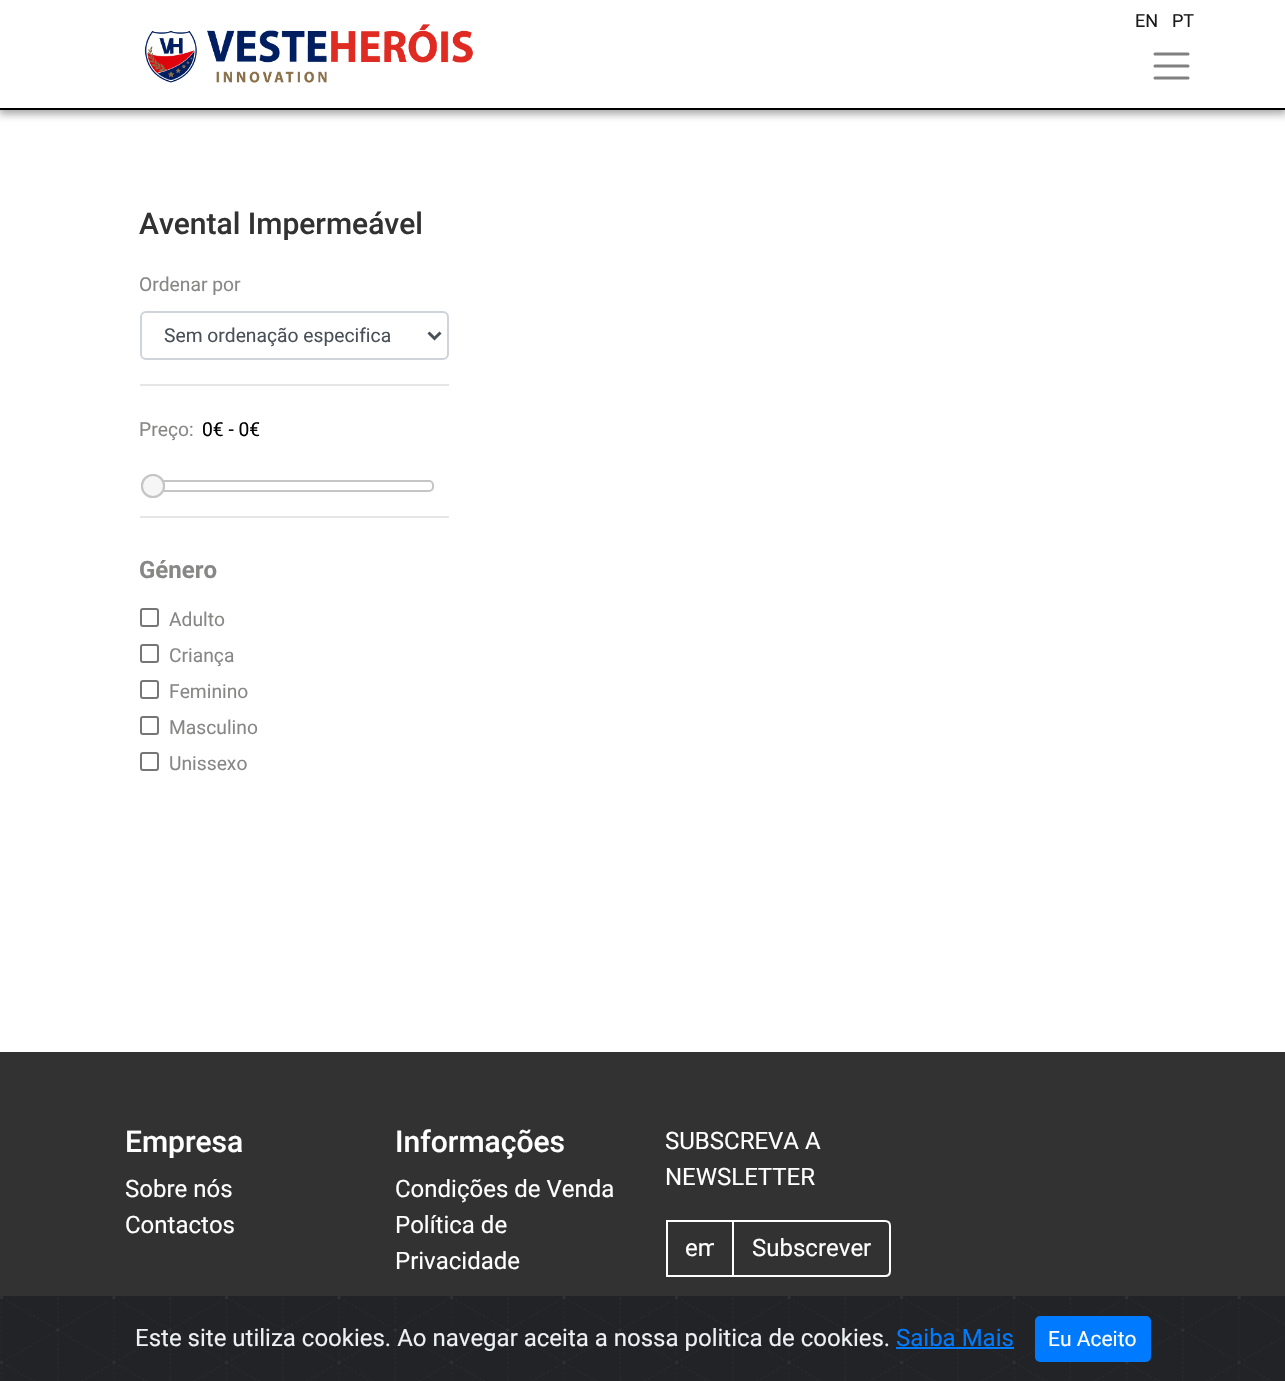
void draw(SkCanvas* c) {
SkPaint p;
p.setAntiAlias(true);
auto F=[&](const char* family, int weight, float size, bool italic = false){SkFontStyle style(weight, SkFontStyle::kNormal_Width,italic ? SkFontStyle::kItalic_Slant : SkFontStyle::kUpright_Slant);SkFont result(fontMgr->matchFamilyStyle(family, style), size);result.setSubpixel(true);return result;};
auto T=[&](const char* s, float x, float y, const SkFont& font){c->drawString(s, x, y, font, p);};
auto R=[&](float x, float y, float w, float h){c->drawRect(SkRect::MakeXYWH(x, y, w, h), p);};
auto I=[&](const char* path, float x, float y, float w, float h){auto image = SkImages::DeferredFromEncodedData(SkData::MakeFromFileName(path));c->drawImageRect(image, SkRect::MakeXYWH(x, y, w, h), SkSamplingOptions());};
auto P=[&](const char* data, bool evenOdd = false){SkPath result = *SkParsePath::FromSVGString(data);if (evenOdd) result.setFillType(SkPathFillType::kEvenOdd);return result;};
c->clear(0xffffffff);
p.setColor(0x59000000);
p.setMaskFilter(SkMaskFilter::MakeBlur(kNormal_SkBlurStyle, 4));
c->drawRect(SkRect::MakeXYWH(-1,2,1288,112),p);
p.setMaskFilter(nullptr);
p.setColor(0xffffffff);
R(0,0,1285,108);
p.setColor(0xff000000);
R(0,108,1285,2);
auto f1 = F("Roboto",400,18);
p.setColor(0xff1a1a1a);
T("EN",1135,27,f1);
T("PT",1172,27,f1);
I("1.png",144,24,329,59);
p.setStroke(true);
p.setStrokeWidth(3);
p.setStrokeCap(SkPaint::kRound_Cap);
p.setColor(0xff808080);
c->drawPath(P("M1155 54h33m-33 12h33m-33 12h33"),p);
auto f2 = F("Roboto",500,30);
p.setStroke(false);
p.setColor(0xff323232);
T("Avental Impermeável",139,234,f2);
c->save();
c->clipRect(SkRect::MakeXYWH(140,266,324,516));
auto f3 = F("Roboto",400,19.25);
p.setColor(0xff878786);
T("Ordenar por",139,291,f3);
c->restore();
p.setStroke(true);
p.setStrokeWidth(2);
p.setStrokeCap(SkPaint::kButt_Cap);
p.setColor(0xffced4da);
c->drawRoundRect(SkRect::MakeXYWH(141,312,307,47),5,5,p);
p.setStrokeWidth(3);
p.setColor(0xff495057);
c->drawPath(P("M428.5 332.5l6 6l6-6"),p);
p.setStroke(false);
T("Sem ordenação especifica",164,342,f3);
p.setColor(0xffe6e6e6);
R(140,384,309,2);
p.setColor(0xff878786);
T("Preço:",139,436,f3);
p.setColor(0xff000000);
T("0€ - 0€",202,436,f3);
p.setStroke(true);
p.setStrokeWidth(2);
p.setColor(0xffc5c5c5);
c->drawRoundRect(SkRect::MakeXYWH(156,481,277,10),4,4,p);
c->drawCircle(153,486,11,p);
p.setStroke(false);
p.setColor(0xfff6f6f6);
c->drawCircle(153,486,11,p);
p.setStroke(true);
p.setColor(0xffc5c5c5);
c->drawCircle(153,486,11,p);
p.setStroke(false);
p.setColor(0xffe6e6e6);
R(140,516,309,2);
c->save();
c->clipRect(SkRect::MakeXYWH(140,266,324,516));
auto f4 = F("Roboto",700,24);
p.setColor(0xff878786);
T("Género",139,578,f4);
c->restore();
p.setStroke(true);
p.setColor(0xff767676);
c->drawRoundRect(SkRect::MakeXYWH(141,609,17,17),2,2,p);
p.setStroke(false);
p.setColor(0xff878786);
T("Adulto",169,626,f3);
p.setStroke(true);
p.setColor(0xff767676);
c->drawRoundRect(SkRect::MakeXYWH(141,645,17,17),2,2,p);
p.setStroke(false);
p.setColor(0xff878786);
T("Criança",169,662,f3);
p.setStroke(true);
p.setColor(0xff767676);
c->drawRoundRect(SkRect::MakeXYWH(141,681,17,17),2,2,p);
p.setStroke(false);
p.setColor(0xff878786);
T("Feminino",169,698,f3);
p.setStroke(true);
p.setColor(0xff767676);
c->drawRoundRect(SkRect::MakeXYWH(141,717,17,17),2,2,p);
p.setStroke(false);
p.setColor(0xff878786);
T("Masculino",169,734,f3);
p.setStroke(true);
p.setColor(0xff767676);
c->drawRoundRect(SkRect::MakeXYWH(141,753,17,17),2,2,p);
p.setStroke(false);
p.setColor(0xff878786);
T("Unissexo",169,770,f3);
p.setColor(0xff323232);
R(0,1052,1285,244);
p.setColor(0xffffffff);
T("Empresa",125,1152,f2);
auto f5 = F("Roboto",400,24);
T("Sobre nós",125,1197,f5);
T("Contactos",125,1233,f5);
T("Informações",395,1152,f2);
T("Condições de Venda",395,1197,f5);
T("Política de",395,1233,f5);
T("Privacidade",395,1269,f5);
T("SUBSCREVA A",665,1149,f5);
T("NEWSLETTER",665,1185,f5);
p.setStroke(true);
c->drawRect(SkRect::MakeXYWH(667,1221,66,55),p);
c->save();
c->clipRect(SkRect::MakeXYWH(686,1235,28,28));
p.setStroke(false);
T("em",685,1256,f5);
c->restore();
p.setStroke(true);
c->drawPath(P("M733 1221h152c3 0 5 2 5 5v45c0 3-2 5-5 5h-152z"),p);
p.setStroke(false);
T("Subscrever",752,1256,f5);
p.setColor(0xff212327);
R(1284,1296,1,85);
I("2.png",0,1296,1284,85);
p.setColor(0xffecf0f1);
T("Este site utiliza cookies. Ao navegar aceita a nossa politica de cookies.",135,1346,f5);
p.setColor(0xff007bff);
T("Saiba Mais",896,1346,f5);
R(896,1347,118,2);
c->drawRoundRect(SkRect::MakeXYWH(1036,1317,114,44),4,4,p);
p.setStroke(true);
c->drawRoundRect(SkRect::MakeXYWH(1036,1317,114,44),4,4,p);
auto f6 = F("Roboto",400,21);
p.setStroke(false);
p.setColor(0xffffffff);
T("Eu Aceito",1048,1346,f6);
}
